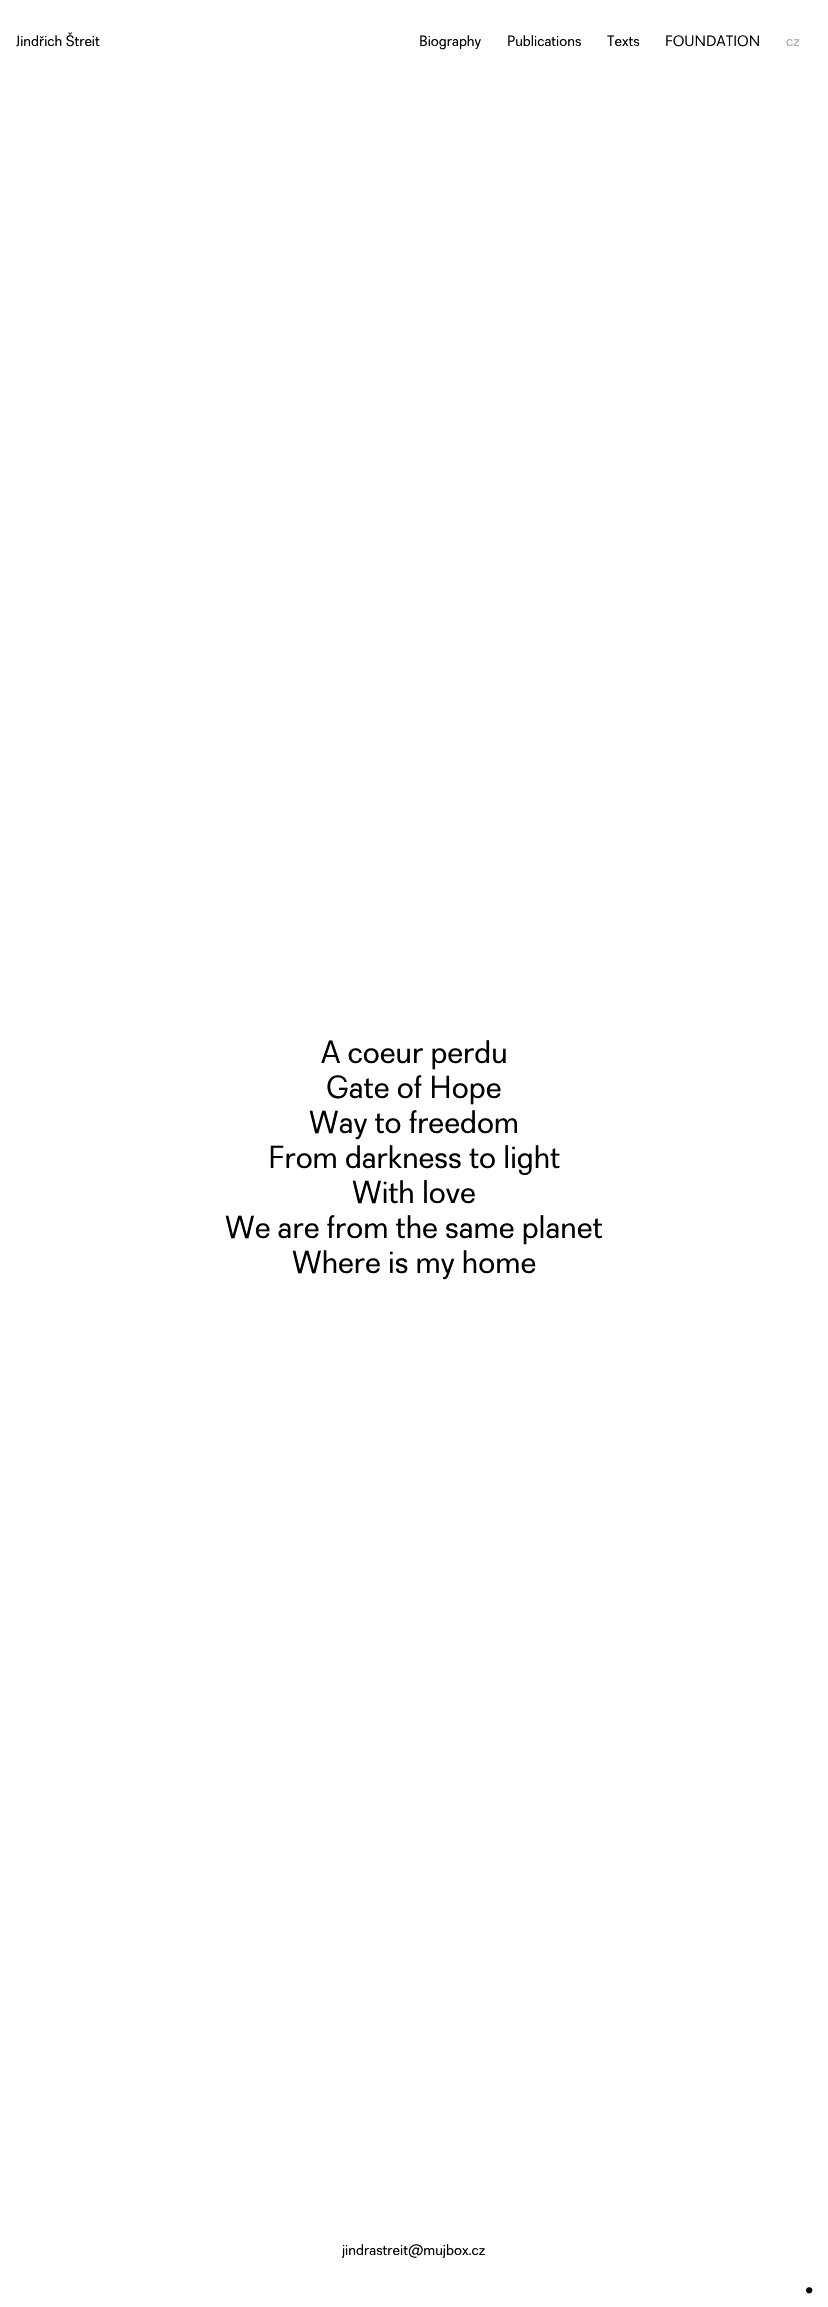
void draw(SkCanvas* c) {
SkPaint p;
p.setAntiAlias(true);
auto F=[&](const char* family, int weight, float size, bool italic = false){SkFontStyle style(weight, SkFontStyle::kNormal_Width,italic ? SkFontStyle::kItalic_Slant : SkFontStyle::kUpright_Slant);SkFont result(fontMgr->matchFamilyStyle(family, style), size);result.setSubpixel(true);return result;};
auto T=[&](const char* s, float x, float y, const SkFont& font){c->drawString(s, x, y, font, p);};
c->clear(0xffffffff);
auto f1 = F("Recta",400,15);
p.setColor(0xff000000);
T("Jindřich Štreit",16,46,f1);
T("Biography",419,46,f1);
T("Publications",507,46,f1);
T("Texts",607,46,f1);
T("FOUNDATION",665,46,f1);
p.setColor(0xffaaaaaa);
T("cz",786,46,f1);
auto f2 = F("Recta",400,31.9);
p.setColor(0xff000000);
T("A coeur perdu",321,1063,f2);
T("Gate of Hope",326,1098,f2);
T("Way to freedom",309,1133,f2);
T("From darkness to light",268,1168,f2);
T("With love",352,1203,f2);
T("We are from the same planet",225,1238,f2);
T("Where is my home",292,1273,f2);
T("jindrastreit@mujbox.cz",342,2255,f1);
auto f3 = F("Recta",400,25);
T("•",805,2299,f3);
}
